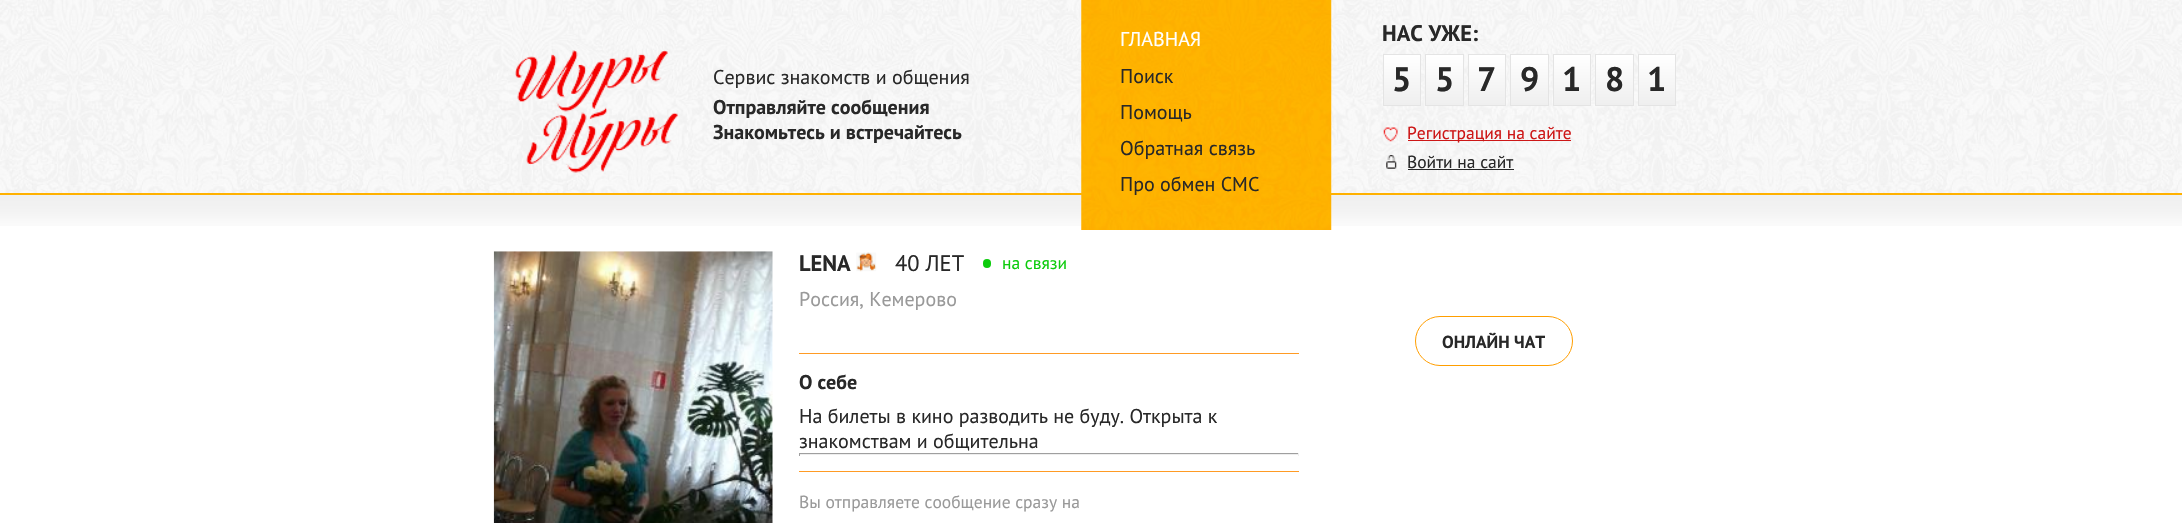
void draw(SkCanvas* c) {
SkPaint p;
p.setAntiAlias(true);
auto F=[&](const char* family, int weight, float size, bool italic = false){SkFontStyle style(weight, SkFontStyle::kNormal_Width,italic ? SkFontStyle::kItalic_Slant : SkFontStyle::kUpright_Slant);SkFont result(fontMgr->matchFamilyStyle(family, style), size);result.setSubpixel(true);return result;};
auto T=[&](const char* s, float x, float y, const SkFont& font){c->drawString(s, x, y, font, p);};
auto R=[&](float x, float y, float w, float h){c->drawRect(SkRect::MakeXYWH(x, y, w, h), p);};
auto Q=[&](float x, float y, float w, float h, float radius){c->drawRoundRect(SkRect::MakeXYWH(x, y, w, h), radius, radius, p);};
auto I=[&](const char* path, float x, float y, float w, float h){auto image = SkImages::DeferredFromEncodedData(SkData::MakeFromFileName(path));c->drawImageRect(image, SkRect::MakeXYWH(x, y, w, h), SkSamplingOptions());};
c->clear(0xffffffff);
I("1.png",0,0,2182,193);
p.setColor(0xffffb100);
R(0,193,2182,2);
I("2.png",515,50,164,123);
auto f1 = F("PT Sans",400,20);
p.setColor(0xff282828);
T("Сервис знакомств и общения",713,84,f1);
auto f2 = F("PT Sans",700,20);
T("Отправляйте сообщения",713,114,f2);
T("Знакомьтесь и встречайтесь",713,139,f2);
I("6.png",0,195,2182,31);
I("3.png",1081,0,251,230);
p.setColor(0xffffffff);
T("ГЛАВНАЯ",1120,46,f1);
p.setColor(0xff282828);
T("Поиск",1120,83,f1);
T("Помощь",1120,119,f1);
T("Обратная связь",1120,155,f1);
T("Про обмен СМС",1120,191,f1);
auto f3 = F("PT Sans",700,22.5);
T("НАС УЖЕ:",1382,41,f3);
{
const SkColor colors[] = {0xffffffff,0xffefefef};
const float stops[] = {0,1};
const SkPoint ends[] = {{1402,55}, {1402,105}};
p.setShader(SkGradientShader::MakeLinear(ends, colors, stops, 2, SkTileMode::kClamp));
p.setAlpha(255);
}
R(1384,55,36,50);
p.setStroke(true);
p.setStrokeWidth(1);
p.setShader(nullptr);
p.setColor(0xffe4e4e4);
c->drawRect(SkRect::MakeXYWH(1383.5,54.5,37,51),p);
auto f4 = F("PT Sans",700,34);
p.setStroke(false);
p.setColor(0xff282828);
T("5",1392,91,f4);
{
const SkColor colors[] = {0xffffffff,0xffefefef};
const float stops[] = {0,1};
const SkPoint ends[] = {{1444,55}, {1444,105}};
p.setShader(SkGradientShader::MakeLinear(ends, colors, stops, 2, SkTileMode::kClamp));
p.setAlpha(255);
}
R(1426,55,37,50);
p.setStroke(true);
p.setShader(nullptr);
p.setColor(0xffe4e4e4);
c->drawRect(SkRect::MakeXYWH(1425.5,54.5,38,51),p);
p.setStroke(false);
p.setColor(0xff282828);
T("5",1435,91,f4);
{
const SkColor colors[] = {0xffffffff,0xffefefef};
const float stops[] = {0,1};
const SkPoint ends[] = {{1487,55}, {1487,105}};
p.setShader(SkGradientShader::MakeLinear(ends, colors, stops, 2, SkTileMode::kClamp));
p.setAlpha(255);
}
R(1469,55,36,50);
p.setStroke(true);
p.setShader(nullptr);
p.setColor(0xffe4e4e4);
c->drawRect(SkRect::MakeXYWH(1468.5,54.5,37,51),p);
p.setStroke(false);
p.setColor(0xff282828);
T("7",1477,91,f4);
{
const SkColor colors[] = {0xffffffff,0xffefefef};
const float stops[] = {0,1};
const SkPoint ends[] = {{1529,55}, {1529,105}};
p.setShader(SkGradientShader::MakeLinear(ends, colors, stops, 2, SkTileMode::kClamp));
p.setAlpha(255);
}
R(1511,55,37,50);
p.setStroke(true);
p.setShader(nullptr);
p.setColor(0xffe4e4e4);
c->drawRect(SkRect::MakeXYWH(1510.5,54.5,38,51),p);
p.setStroke(false);
p.setColor(0xff282828);
T("9",1520,91,f4);
{
const SkColor colors[] = {0xffffffff,0xffefefef};
const float stops[] = {0,1};
const SkPoint ends[] = {{1572,55}, {1572,105}};
p.setShader(SkGradientShader::MakeLinear(ends, colors, stops, 2, SkTileMode::kClamp));
p.setAlpha(255);
}
R(1554,55,36,50);
p.setStroke(true);
p.setShader(nullptr);
p.setColor(0xffe4e4e4);
c->drawRect(SkRect::MakeXYWH(1553.5,54.5,37,51),p);
p.setStroke(false);
p.setColor(0xff282828);
T("1",1562,91,f4);
{
const SkColor colors[] = {0xffffffff,0xffefefef};
const float stops[] = {0,1};
const SkPoint ends[] = {{1614,55}, {1614,105}};
p.setShader(SkGradientShader::MakeLinear(ends, colors, stops, 2, SkTileMode::kClamp));
p.setAlpha(255);
}
R(1596,55,37,50);
p.setStroke(true);
p.setShader(nullptr);
p.setColor(0xffe4e4e4);
c->drawRect(SkRect::MakeXYWH(1595.5,54.5,38,51),p);
p.setStroke(false);
p.setColor(0xff282828);
T("8",1605,91,f4);
{
const SkColor colors[] = {0xffffffff,0xffefefef};
const float stops[] = {0,1};
const SkPoint ends[] = {{1657,55}, {1657,105}};
p.setShader(SkGradientShader::MakeLinear(ends, colors, stops, 2, SkTileMode::kClamp));
p.setAlpha(255);
}
R(1639,55,36,50);
p.setStroke(true);
p.setShader(nullptr);
p.setColor(0xffe4e4e4);
c->drawRect(SkRect::MakeXYWH(1638.5,54.5,37,51),p);
p.setStroke(false);
p.setColor(0xff282828);
T("1",1647,91,f4);
I("4.png",1383,127,15,15);
p.setColor(0xffcd1717);
R(1408,140,163,1);
auto f5 = F("PT Sans",400,17.5);
T("Регистрация на сайте",1407,139,f5);
I("5.png",1386,155,11,14);
p.setColor(0xff282828);
T("Войти на сайт",1407,168,f5);
R(1408,169,106,1);
I("7.png",493,251,280,272);
p.setColor(0xffff9b24);
R(799,353,500,1);
p.setColor(0xff282828);
T("LENA",799,271,f3);
I("8.png",856,252,21,20);
auto f6 = F("PT Sans",400,22.5);
T("40 ЛЕТ",895,271,f6);
p.setColor(0xff0ccc0c);
Q(983,259,8,9,4);
T("на связи",1002,269,f5);
p.setColor(0xff999999);
T("Россия, Кемерово",799,306,f1);
p.setColor(0xff282828);
T("О себе",799,389,f2);
T("На билеты в кино разводить не буду. Открыта к",799,423,f1);
T("знакомствам и общительна",799,448,f1);
p.setColor(0xff9f9f9f);
R(799,453,500,1);
p.setColor(0xffeeeeee);
R(1298,453,1,3);
R(799,454,500,1);
p.setColor(0xff9f9f9f);
R(799,453,1,3);
p.setColor(0xffff9b24);
R(799,471,500,1);
p.setColor(0xff999999);
T("Вы отправляете сообщение сразу на",799,508,f5);
p.setStroke(true);
p.setColor(0xffff9e00);
c->drawRoundRect(SkRect::MakeXYWH(1415.5,316.5,157,49),24.5,24.5,p);
auto f7 = F("PT Sans",700,17.5);
p.setStroke(false);
p.setColor(0xff282828);
T("ОНЛАЙН ЧАТ",1442,348,f7);
}
